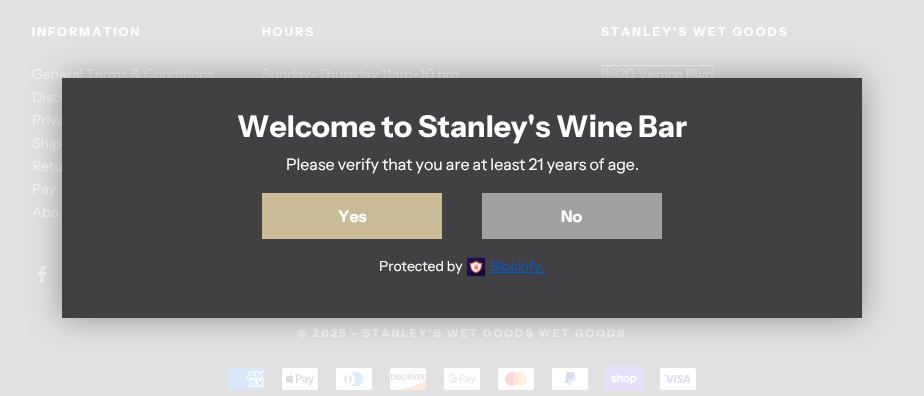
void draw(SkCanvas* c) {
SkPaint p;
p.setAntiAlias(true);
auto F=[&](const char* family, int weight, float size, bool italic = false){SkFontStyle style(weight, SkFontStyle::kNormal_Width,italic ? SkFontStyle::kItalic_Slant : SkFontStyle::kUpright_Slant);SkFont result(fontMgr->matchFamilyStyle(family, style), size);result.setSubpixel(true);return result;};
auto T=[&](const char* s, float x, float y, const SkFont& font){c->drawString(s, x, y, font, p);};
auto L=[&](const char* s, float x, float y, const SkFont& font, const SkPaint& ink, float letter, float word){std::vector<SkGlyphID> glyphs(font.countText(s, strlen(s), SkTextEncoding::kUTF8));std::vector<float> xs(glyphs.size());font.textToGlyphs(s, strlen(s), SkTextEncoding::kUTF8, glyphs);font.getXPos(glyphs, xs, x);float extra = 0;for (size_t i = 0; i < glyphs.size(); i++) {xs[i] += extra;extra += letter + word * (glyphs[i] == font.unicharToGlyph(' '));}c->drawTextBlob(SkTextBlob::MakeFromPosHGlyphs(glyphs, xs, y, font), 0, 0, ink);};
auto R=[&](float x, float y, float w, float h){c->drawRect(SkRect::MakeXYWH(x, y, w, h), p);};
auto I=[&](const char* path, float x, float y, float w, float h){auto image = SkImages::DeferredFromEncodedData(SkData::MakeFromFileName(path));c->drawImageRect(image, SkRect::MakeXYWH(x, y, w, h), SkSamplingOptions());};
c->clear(0xffe2e2e3);
auto f1 = F("Instrument Sans",700,12);
p.setColor(0xffffffff);
L("INFORMATION",32,36,f1,p,2.2,0);
auto f2 = F("Instrument Sans",400,14);
p.setColor(0xfff5f5f5);
T("General Terms & Conditions",32,79,f2);
T("Discl",32,102,f2);
T("Priva",32,125,f2);
T("Ship",32,148,f2);
T("Retu",32,171,f2);
T("Pay",32,194,f2);
T("Abo",32,217,f2);
p.setColor(0xffffffff);
L("HOURS",262,36,f1,p,2.2,0);
p.setColor(0xfff5f5f5);
T("Sunday-Thursday 11am-10 pm",262,79,f2);
p.setColor(0xffffffff);
L("STANLEY'S WET GOODS",601,36,f1,p,2.2,0);
p.setColor(0xfff5f5f5);
T("9620 Venice Blvd",601,79,f2);
R(601,65,113,1);
I("1.png",38,266,9,17);
auto f3 = F("Instrument Sans",700,11);
L("© 2025 - STANLEY'S WET GOODS WET GOODS",298,337,f3,p,2,0);
I("2.png",227,367,38,24);
I("3.png",281,367,38,24);
I("4.png",335,367,38,24);
I("5.png",389,367,38,24);
I("6.png",443,367,38,24);
I("7.png",497,367,38,24);
I("8.png",551,367,38,24);
I("9.png",605,367,38,24);
I("10.png",659,367,38,24);
p.setColor(0x59000000);
p.setMaskFilter(SkMaskFilter::MakeBlur(kNormal_SkBlurStyle, 15));
c->drawRect(SkRect::MakeXYWH(62,78,800,240),p);
p.setMaskFilter(nullptr);
p.setColor(0xff414042);
R(62,78,800,240);
auto f4 = F("Instrument Sans",700,30);
p.setColor(0xffffffff);
T("Welcome to Stanley's Wine Bar",237,137,f4);
auto f5 = F("Instrument Sans",400,16);
T("Please verify that you are at least 21 years of age.",286,170,f5);
p.setColor(0xffc8bb95);
R(262,193,180,46);
auto f6 = F("Instrument Sans",700,16);
p.setColor(0xffffffff);
T("Yes",338,222,f6);
p.setColor(0xffa0a0a0);
R(482,193,180,46);
p.setColor(0xffffffff);
T("No",561,222,f6);
T("Protected by",379,271,f2);
I("11.png",466,257,20,20);
p.setColor(0xff005bd3);
R(490,272,55,1);
T("Blockify.",490,271,f2);
}
